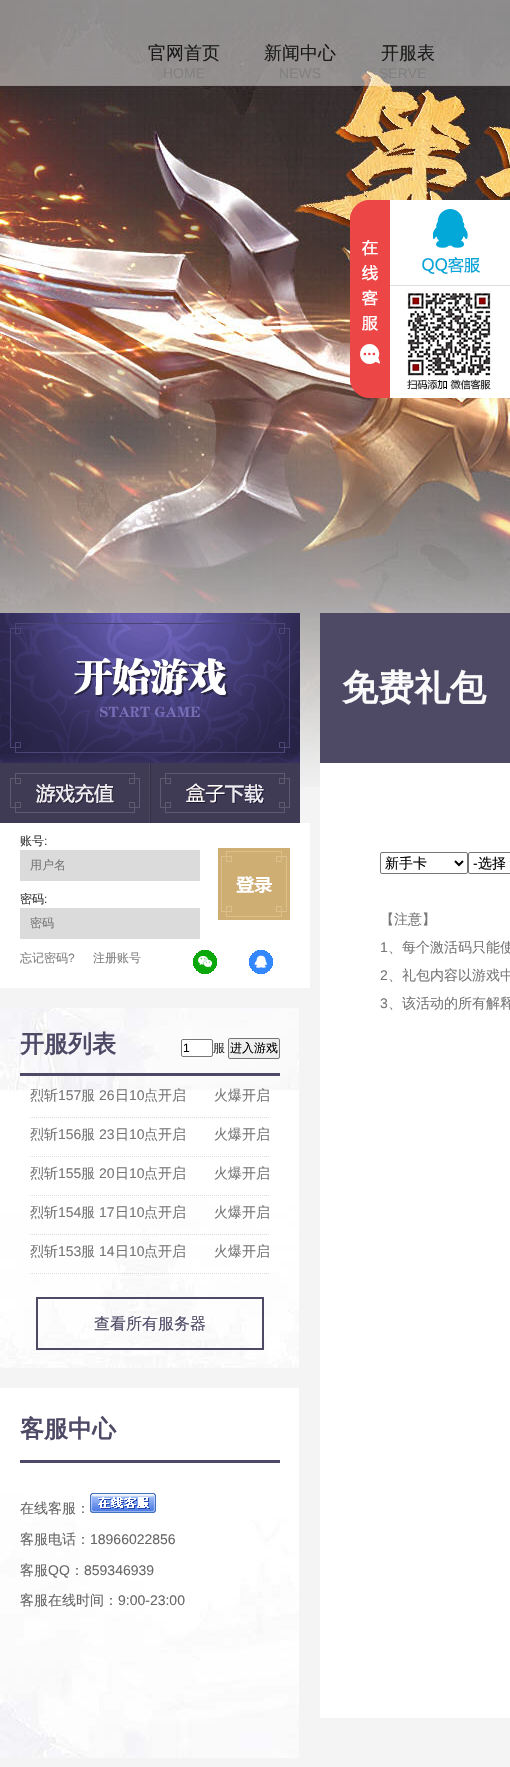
void draw(SkCanvas* c) {
SkPaint p;
p.setAntiAlias(true);
auto F=[&](const char* family, int weight, float size, bool italic = false){SkFontStyle style(weight, SkFontStyle::kNormal_Width,italic ? SkFontStyle::kItalic_Slant : SkFontStyle::kUpright_Slant);SkFont result(fontMgr->matchFamilyStyle(family, style), size);result.setSubpixel(true);return result;};
auto T=[&](const char* s, float x, float y, const SkFont& font){c->drawString(s, x, y, font, p);};
auto R=[&](float x, float y, float w, float h){c->drawRect(SkRect::MakeXYWH(x, y, w, h), p);};
auto I=[&](const char* path, float x, float y, float w, float h){auto image = SkImages::DeferredFromEncodedData(SkData::MakeFromFileName(path));c->drawImageRect(image, SkRect::MakeXYWH(x, y, w, h), SkSamplingOptions());};
auto P=[&](const char* data, bool evenOdd = false){SkPath result = *SkParsePath::FromSVGString(data);if (evenOdd) result.setFillType(SkPathFillType::kEvenOdd);return result;};
c->clear(0xfff4f4f4);
I("1.png",0,0,510,787);
auto f1 = F("WenQuanYi Zen Hei",500,18);
p.setColor(0xff1a1a1a);
T("官网首页",148,59,f1);
auto f2 = F("Liberation Sans",400,14);
p.setColor(0xff808080);
T("HOME",163,78,f2);
p.setColor(0xff1a1a1a);
T("新闻中心",264,59,f1);
p.setColor(0xff808080);
T("NEWS",279,78,f2);
p.setColor(0xff1a1a1a);
T("开服表",381,59,f1);
p.setColor(0xff808080);
T("SERVE",379,78,f2);
I("2.png",350,200,160,198);
I("3.png",0,613,300,150);
I("4.png",0,763,150,60);
I("5.png",150,763,150,60);
p.setColor(0xffffffff);
R(0,823,310,165);
auto f3 = F("WenQuanYi Zen Hei",500,12);
p.setColor(0xff333333);
T("账号",20,845,f3);
auto f4 = F("Liberation Sans",400,12);
T(":",44,845,f4);
p.setColor(0xffdbdbdb);
R(20,850,180,31);
p.setColor(0xff777777);
T("用户名",30,869,f3);
p.setColor(0xff333333);
T("密码",20,903,f3);
T(":",44,903,f4);
p.setColor(0xffdbdbdb);
R(20,908,180,31);
p.setColor(0xff777777);
T("密码",30,927,f3);
I("6.png",218,848,72,72);
p.setColor(0xff808080);
T("忘记密码",20,962,f3);
T("?",68,962,f4);
T("注册账号",93,962,f3);
I("7.png",193,950,24,24);
I("8.png",249,950,24,24);
I("9.png",0,1008,299,360);
p.setColor(0xff4e4a66);
R(20,1073,260,3);
auto f5 = F("WenQuanYi Zen Hei",700,24);
T("开服列表",20,1052,f5);
p.setColor(0xffffffff);
c->drawRoundRect(SkRect::MakeXYWH(181.5,1039.5,31,17),1.5,1.5,p);
p.setStroke(true);
p.setStrokeWidth(1);
p.setColor(0xff767676);
c->drawRoundRect(SkRect::MakeXYWH(181.5,1039.5,31,17),1.5,1.5,p);
p.setStroke(false);
p.setColor(0xff000000);
T("1",183,1052,f4);
p.setColor(0xff333333);
T("服",213,1052,f3);
p.setColor(0xffefefef);
c->drawRoundRect(SkRect::MakeXYWH(228.5,1038.5,51,20),1.5,1.5,p);
p.setStroke(true);
p.setColor(0xff767676);
c->drawRoundRect(SkRect::MakeXYWH(228.5,1038.5,51,20),1.5,1.5,p);
p.setStroke(false);
p.setColor(0xff000000);
T("进入游戏",230,1052,f3);
p.setStroke(true);
p.setColor(0xffdddddd);
p.setPathEffect(SkDashPathEffect::Make({{1,1}}, 0));
c->drawPath(P("M30 1117.5h240"),p);
p.setPathEffect(nullptr);
auto f6 = F("WenQuanYi Zen Hei",500,14);
p.setStroke(false);
p.setColor(0xff777777);
T("烈斩",30,1100,f6);
T("157",58,1100,f2);
T("服",81,1100,f6);
T("26",99,1100,f2);
T("日",115,1100,f6);
T("10",129,1100,f2);
T("点开启",144,1100,f6);
T("火爆开启",214,1100,f6);
p.setStroke(true);
p.setColor(0xffdddddd);
p.setPathEffect(SkDashPathEffect::Make({{1,1}}, 0));
c->drawPath(P("M30 1156.5h240"),p);
p.setPathEffect(nullptr);
p.setStroke(false);
p.setColor(0xff777777);
T("烈斩",30,1139,f6);
T("156",58,1139,f2);
T("服",81,1139,f6);
T("23",99,1139,f2);
T("日",115,1139,f6);
T("10",129,1139,f2);
T("点开启",144,1139,f6);
T("火爆开启",214,1139,f6);
p.setStroke(true);
p.setColor(0xffdddddd);
p.setPathEffect(SkDashPathEffect::Make({{1,1}}, 0));
c->drawPath(P("M30 1195.5h240"),p);
p.setPathEffect(nullptr);
p.setStroke(false);
p.setColor(0xff777777);
T("烈斩",30,1178,f6);
T("155",58,1178,f2);
T("服",81,1178,f6);
T("20",99,1178,f2);
T("日",115,1178,f6);
T("10",129,1178,f2);
T("点开启",144,1178,f6);
T("火爆开启",214,1178,f6);
p.setStroke(true);
p.setColor(0xffdddddd);
p.setPathEffect(SkDashPathEffect::Make({{1,1}}, 0));
c->drawPath(P("M30 1234.5h240"),p);
p.setPathEffect(nullptr);
p.setStroke(false);
p.setColor(0xff777777);
T("烈斩",30,1217,f6);
T("154",58,1217,f2);
T("服",81,1217,f6);
T("17",99,1217,f2);
T("日",115,1217,f6);
T("10",129,1217,f2);
T("点开启",144,1217,f6);
T("火爆开启",214,1217,f6);
p.setStroke(true);
p.setColor(0xffdddddd);
p.setPathEffect(SkDashPathEffect::Make({{1,1}}, 0));
c->drawPath(P("M30 1273.5h240"),p);
p.setPathEffect(nullptr);
p.setStroke(false);
p.setColor(0xff777777);
T("烈斩",30,1256,f6);
T("153",58,1256,f2);
T("服",81,1256,f6);
T("14",99,1256,f2);
T("日",115,1256,f6);
T("10",129,1256,f2);
T("点开启",144,1256,f6);
T("火爆开启",214,1256,f6);
p.setStroke(true);
p.setStrokeWidth(2);
p.setColor(0xff4e4a66);
c->drawRect(SkRect::MakeXYWH(37,1298,226,51),p);
auto f7 = F("WenQuanYi Zen Hei",500,16);
p.setStroke(false);
T("查看所有服务器",94,1329,f7);
I("10.png",0,1388,299,370);
R(20,1460,260,3);
T("客服中心",20,1437,f5);
p.setColor(0xff666666);
T("在线客服：",20,1513,f6);
I("11.png",90,1493,66,20);
T("客服电话：",20,1544,f6);
T("18966022856",90,1544,f2);
T("客服",20,1575,f6);
T("QQ",48,1575,f2);
T("：",70,1575,f6);
T("859346939",84,1575,f2);
T("客服在线时间：",20,1605,f6);
T("9:00-23:00",118,1605,f2);
p.setColor(0xffffffff);
R(320,763,190,955);
p.setColor(0xff4e4a66);
R(320,613,190,150);
auto f8 = F("WenQuanYi Zen Hei",700,36);
p.setColor(0xfffafafa);
T("免费礼包",342,700,f8);
p.setStroke(true);
p.setStrokeWidth(1);
p.setColor(0xff767676);
c->drawRoundRect(SkRect::MakeXYWH(380.5,852.5,87,21),1.5,1.5,p);
p.setStrokeWidth(2);
p.setColor(0xff000000);
c->drawPath(P("M455 861l4 4l4-4"),p);
p.setStroke(false);
T("新手卡",385,868,f6);
p.setStroke(true);
p.setStrokeWidth(1);
p.setColor(0xff767676);
c->drawRoundRect(SkRect::MakeXYWH(468.5,852.5,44,21),1.5,1.5,p);
p.setStroke(false);
p.setColor(0xff000000);
T("-",473,868,f2);
T("选择",478,868,f6);
p.setColor(0xff777777);
T("【注意】",380,924,f6);
T("1",380,952,f2);
T("、每个激活码只能使",388,952,f6);
T("2",380,980,f2);
T("、礼包内容以游戏中",388,980,f6);
T("3",380,1008,f2);
T("、该活动的所有解释",388,1008,f6);
}
